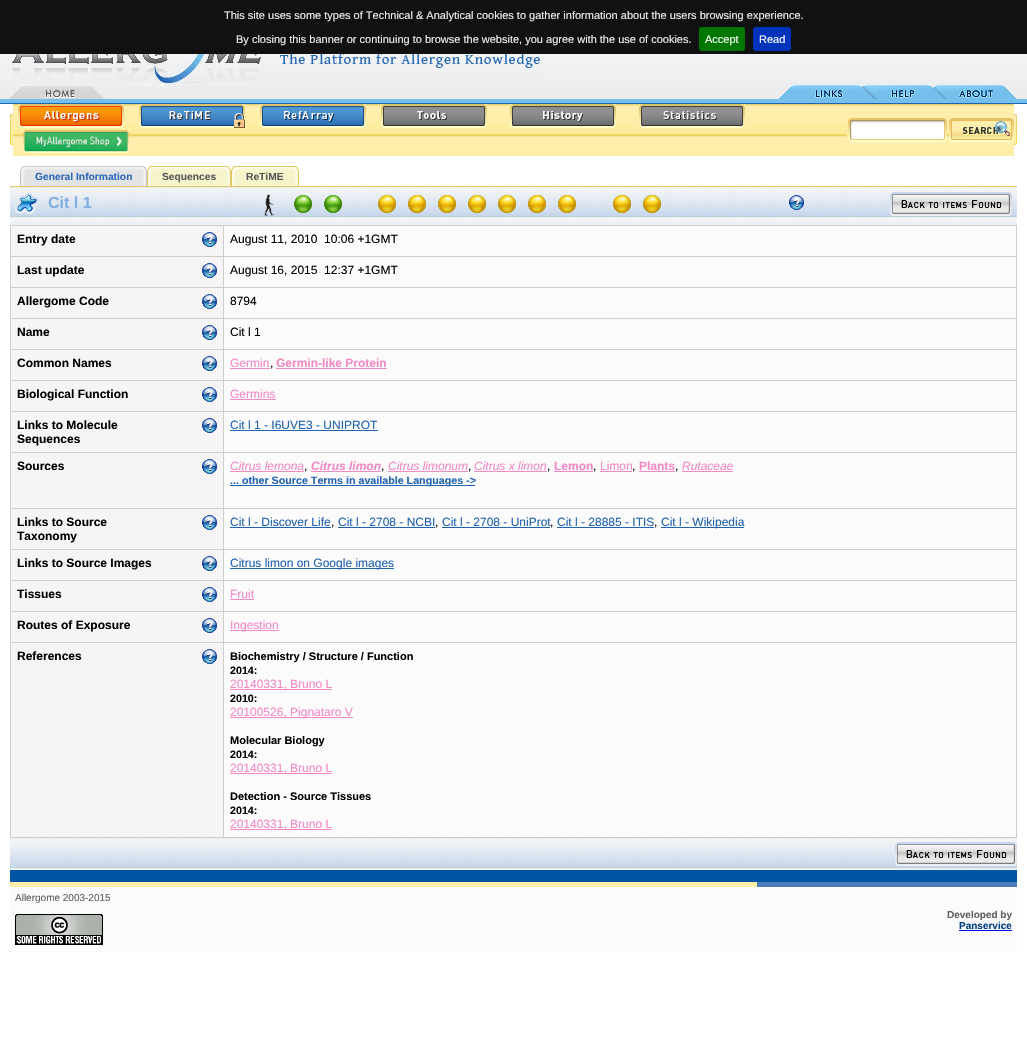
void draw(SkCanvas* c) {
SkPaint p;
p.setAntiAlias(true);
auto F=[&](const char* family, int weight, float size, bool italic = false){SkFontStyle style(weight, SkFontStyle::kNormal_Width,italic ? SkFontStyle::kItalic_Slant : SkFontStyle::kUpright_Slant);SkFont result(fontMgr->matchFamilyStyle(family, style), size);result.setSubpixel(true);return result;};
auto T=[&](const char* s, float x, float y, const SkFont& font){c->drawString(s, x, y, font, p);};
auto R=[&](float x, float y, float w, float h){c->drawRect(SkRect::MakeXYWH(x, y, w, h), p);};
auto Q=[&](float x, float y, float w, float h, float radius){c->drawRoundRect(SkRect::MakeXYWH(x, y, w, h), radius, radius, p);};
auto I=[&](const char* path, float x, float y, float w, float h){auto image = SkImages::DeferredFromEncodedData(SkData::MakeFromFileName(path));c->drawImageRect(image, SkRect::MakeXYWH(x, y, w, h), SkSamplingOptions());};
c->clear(0xffffffff);
I("1.png",0,54,1027,50);
p.setColor(0xff111111);
R(0,0,1027,54);
auto f1 = F("Liberation Sans",400,11);
p.setColor(0xffeeeeee);
T("This site uses some types of Technical & Analytical cookies to gather information about the users browsing experience.",224,19,f1);
T("By closing this banner or continuing to browse the website, you agree with the use of cookies.",236,43,f1);
p.setColor(0xff007700);
Q(699,27,46,24,3);
p.setColor(0xffffffff);
T("Accept",705,43,f1);
p.setColor(0xff0033bb);
Q(753,27,38,24,3);
p.setColor(0xffffffff);
T("Read",759,43,f1);
I("2.png",10,54,530,42);
I("3.png",10,85,95,14);
I("4.png",779,85,95,14);
I("5.png",874,85,71,14);
I("6.png",945,85,72,14);
I("7.png",10,114,3,31);
I("8.png",13,104,834,52);
I("9.png",18,104,106,24);
I("10.png",139,104,106,24);
I("11.png",260,104,106,24);
I("12.png",381,104,106,24);
I("13.png",510,104,106,24);
I("14.png",639,104,106,24);
I("15.png",23,130,106,24);
I("16.png",847,104,167,52);
I("17.png",847,118,100,24);
I("18.png",949,118,65,24);
I("19.png",1014,114,3,31);
p.setColor(0xffe2c763);
R(10,186,1007,1);
I("20.png",20,166,11,20);
I("21.png",31,166,116,20);
auto f2 = F("Liberation Sans",700,10.25);
p.setColor(0xff2b68b7);
T("General Information",35,180,f2);
I("22.png",147,166,11,20);
I("23.png",158,166,73,20);
p.setColor(0xff565657);
T("Sequences",162,180,f2);
I("22.png",231,166,11,20);
I("24.png",242,166,57,20);
T("ReTiME",246,180,f2);
I("25.png",10,187,137,38);
I("26.png",15,193,24,21);
auto f3 = F("Liberation Sans",700,16);
p.setColor(0xff85afe1);
T("Cit l 1",48,208,f3);
I("27.png",147,187,637,38);
I("28.png",264,194,10,22);
I("29.png",294,195,18,18);
I("30.png",324,195,18,18);
I("31.png",378,195,18,18);
I("32.png",408,195,18,18);
I("33.png",438,195,18,18);
I("34.png",468,195,18,18);
I("35.png",498,195,18,18);
I("36.png",528,195,18,18);
I("37.png",558,195,18,18);
I("38.png",613,195,18,18);
I("39.png",643,195,18,18);
I("40.png",784,187,233,38);
I("41.png",789,195,15,15);
I("42.png",890,192,122,24);
p.setColor(0xffcecece);
R(10,225,1007,613);
p.setColor(0xfff6f4f4);
R(11,226,212,30);
auto f4 = F("Liberation Sans",700,12);
p.setColor(0xff000000);
T("Entry date",17,243,f4);
I("43.png",202,232,15,15);
p.setColor(0xfffcfbfb);
R(224,226,792,30);
auto f5 = F("Liberation Sans",400,12);
p.setColor(0xff000000);
T("August 11, 2010  10:06 +1GMT",230,243,f5);
p.setColor(0xfff6f4f4);
R(11,257,212,30);
p.setColor(0xff000000);
T("Last update",17,274,f4);
I("43.png",202,263,15,15);
p.setColor(0xfffcfbfb);
R(224,257,792,30);
p.setColor(0xff000000);
T("August 16, 2015  12:37 +1GMT",230,274,f5);
p.setColor(0xfff6f4f4);
R(11,288,212,30);
p.setColor(0xff000000);
T("Allergome Code",17,305,f4);
I("43.png",202,294,15,15);
p.setColor(0xfffcfbfb);
R(224,288,792,30);
p.setColor(0xff000000);
T("8794",230,305,f5);
p.setColor(0xfff6f4f4);
R(11,319,212,30);
p.setColor(0xff000000);
T("Name",17,336,f4);
I("43.png",202,325,15,15);
p.setColor(0xfffcfbfb);
R(224,319,792,30);
p.setColor(0xff000000);
T("Cit l 1",230,336,f5);
p.setColor(0xfff6f4f4);
R(11,350,212,30);
p.setColor(0xff000000);
T("Common Names",17,367,f4);
I("43.png",202,356,15,15);
p.setColor(0xfffcfbfb);
R(224,350,792,30);
p.setColor(0xfff38ac6);
T("Germin",230,367,f5);
R(230,368,40,1);
p.setColor(0xff000000);
T(",",270,367,f5);
p.setColor(0xfff38ac6);
T("Germin-like Protein",276,367,f4);
R(276,368,111,1);
p.setColor(0xfff6f4f4);
R(11,381,212,30);
p.setColor(0xff000000);
T("Biological Function",17,398,f4);
I("43.png",202,387,15,15);
p.setColor(0xfffcfbfb);
R(224,381,792,30);
p.setColor(0xfff38ac6);
T("Germins",230,398,f5);
R(230,399,46,1);
p.setColor(0xfff6f4f4);
R(11,412,212,40);
p.setColor(0xff000000);
T("Links to Molecule",17,429,f4);
I("43.png",202,418,15,15);
T("Sequences",17,443,f4);
p.setColor(0xfffcfbfb);
R(224,412,792,40);
p.setColor(0xff2063b0);
T("Cit l 1 - I6UVE3 - UNIPROT",230,429,f5);
R(230,430,148,1);
p.setColor(0xfff6f4f4);
R(11,453,212,55);
p.setColor(0xff000000);
T("Sources",17,470,f4);
I("43.png",202,459,15,15);
p.setColor(0xfffcfbfb);
R(224,453,792,55);
auto f6 = F("Liberation Sans",400,12,true);
p.setColor(0xfff38ac6);
T("Citrus lemona",230,470,f6);
R(230,471,74,1);
p.setColor(0xff000000);
T(",",304,470,f5);
auto f7 = F("Liberation Sans",700,12,true);
p.setColor(0xfff38ac6);
T("Citrus limon",311,470,f7);
R(311,471,70,1);
p.setColor(0xff000000);
T(",",381,470,f5);
p.setColor(0xfff38ac6);
T("Citrus limonum",388,470,f6);
R(388,471,80,1);
p.setColor(0xff000000);
T(",",468,470,f5);
p.setColor(0xfff38ac6);
T("Citrus x limon",474,470,f6);
R(474,471,73,1);
p.setColor(0xff000000);
T(",",547,470,f5);
p.setColor(0xfff38ac6);
T("Lemon",554,470,f4);
R(554,471,39,1);
p.setColor(0xff000000);
T(",",593,470,f5);
p.setColor(0xfff38ac6);
T("Limon",600,470,f5);
R(600,471,32,1);
p.setColor(0xff000000);
T(",",632,470,f5);
p.setColor(0xfff38ac6);
T("Plants",639,470,f4);
R(639,471,36,1);
p.setColor(0xff000000);
T(",",675,470,f5);
p.setColor(0xfff38ac6);
T("Rutaceae",682,470,f6);
R(682,471,51,1);
p.setColor(0xff2063b0);
R(230,485,245,1);
auto f8 = F("Liberation Sans",700,10.7);
T("... other Source Terms in available Languages ->",230,484,f8);
p.setColor(0xfff6f4f4);
R(11,509,212,40);
p.setColor(0xff000000);
T("Links to Source",17,526,f4);
I("43.png",202,515,15,15);
T("Taxonomy",17,540,f4);
p.setColor(0xfffcfbfb);
R(224,509,792,40);
p.setColor(0xff2063b0);
T("Cit l - Discover Life",230,526,f5);
R(230,527,101,1);
p.setColor(0xff000000);
T(",",331,526,f5);
p.setColor(0xff2063b0);
T("Cit l - 2708 - NCBI",338,526,f5);
R(338,527,97,1);
p.setColor(0xff000000);
T(",",435,526,f5);
p.setColor(0xff2063b0);
T("Cit l - 2708 - UniProt",442,526,f5);
R(442,527,108,1);
p.setColor(0xff000000);
T(",",550,526,f5);
p.setColor(0xff2063b0);
T("Cit l - 28885 - ITIS",557,526,f5);
R(557,527,97,1);
p.setColor(0xff000000);
T(",",654,526,f5);
p.setColor(0xff2063b0);
R(661,527,83,1);
T("Cit l - Wikipedia",661,526,f5);
p.setColor(0xfff6f4f4);
R(11,550,212,30);
p.setColor(0xff000000);
T("Links to Source Images",17,567,f4);
I("43.png",202,556,15,15);
p.setColor(0xfffcfbfb);
R(224,550,792,30);
p.setColor(0xff2063b0);
R(230,568,164,1);
T("Citrus limon on Google images",230,567,f5);
p.setColor(0xfff6f4f4);
R(11,581,212,30);
p.setColor(0xff000000);
T("Tissues",17,598,f4);
I("43.png",202,587,15,15);
p.setColor(0xfffcfbfb);
R(224,581,792,30);
p.setColor(0xfff38ac6);
T("Fruit",230,598,f5);
R(230,599,24,1);
p.setColor(0xfff6f4f4);
R(11,612,212,30);
p.setColor(0xff000000);
T("Routes of Exposure",17,629,f4);
I("43.png",202,618,15,15);
p.setColor(0xfffcfbfb);
R(224,612,792,30);
p.setColor(0xfff38ac6);
R(230,630,49,1);
T("Ingestion",230,629,f5);
p.setColor(0xfff6f4f4);
R(11,643,212,194);
p.setColor(0xff000000);
T("References",17,660,f4);
I("43.png",202,649,15,15);
p.setColor(0xfffcfbfb);
R(224,643,792,194);
auto f9 = F("Liberation Sans",700,11);
p.setColor(0xff000000);
T("Biochemistry / Structure / Function",230,660,f9);
T("2014:",230,674,f8);
p.setColor(0xfff38ac6);
R(230,689,102,1);
T("20140331, Bruno L",230,688,f5);
p.setColor(0xff000000);
T("2010:",230,702,f8);
p.setColor(0xfff38ac6);
R(230,717,123,1);
T("20100526, Pignataro V",230,716,f5);
p.setColor(0xff000000);
T("Molecular Biology",230,744,f9);
T("2014:",230,758,f8);
p.setColor(0xfff38ac6);
R(230,773,102,1);
T("20140331, Bruno L",230,772,f5);
p.setColor(0xff000000);
T("Detection - Source Tissues",230,800,f9);
T("2014:",230,814,f8);
p.setColor(0xfff38ac6);
R(230,829,102,1);
T("20140331, Bruno L",230,828,f5);
I("44.png",10,838,1007,32);
I("45.png",895,842,122,24);
p.setColor(0xff0054a6);
R(10,870,1007,12);
p.setColor(0xfffbfbfb);
R(10,887,1007,65);
p.setColor(0xfffeeea7);
R(10,882,747,5);
auto f10 = F("Liberation Sans",400,10);
p.setColor(0xff606060);
T("Allergome 2003-2015",15,901,f10);
I("46.png",15,914,88,31);
p.setColor(0xff4b7bb8);
R(757,882,260,5);
auto f11 = F("Liberation Sans",700,10);
p.setColor(0xff606060);
T("Developed by",947,918,f11);
p.setColor(0xff004080);
T("Panservice",959,929,f11);
p.setColor(0xff0000ee);
R(959,930,53,1);
}
